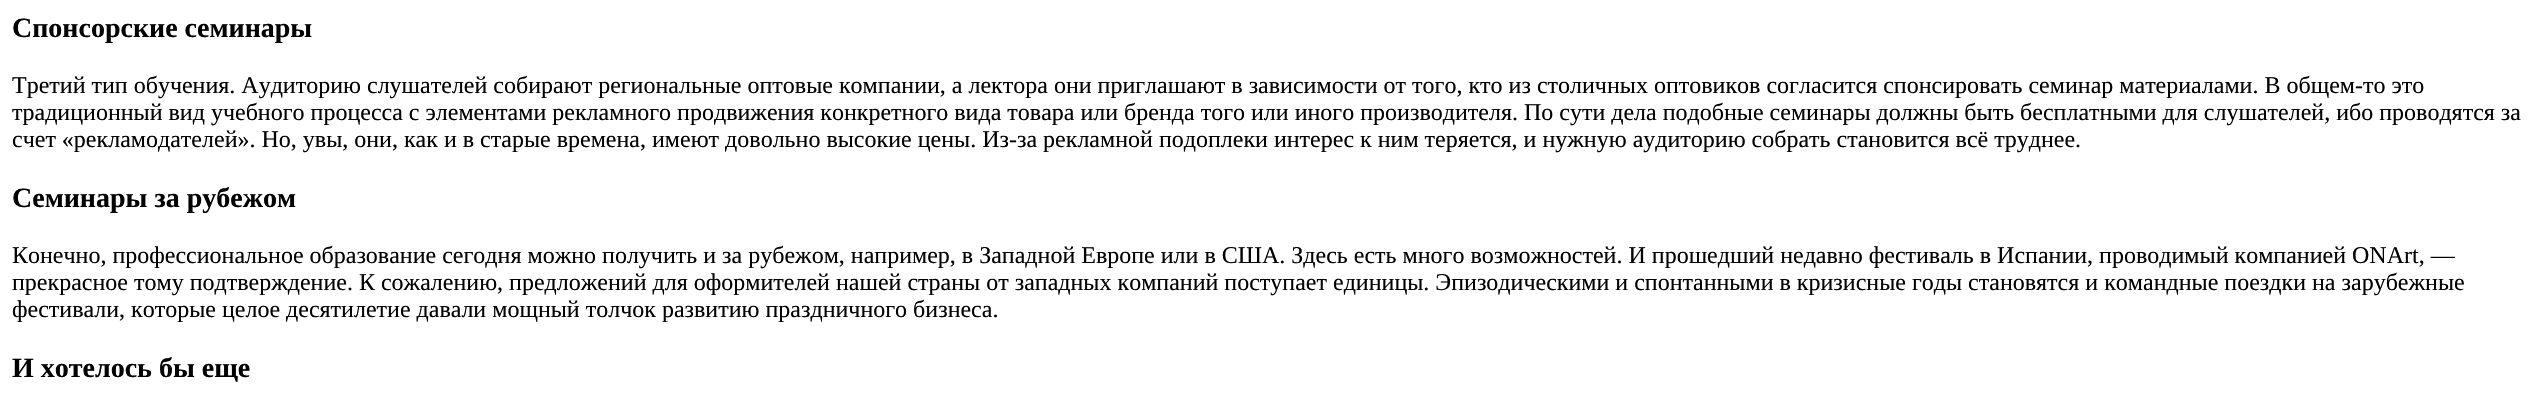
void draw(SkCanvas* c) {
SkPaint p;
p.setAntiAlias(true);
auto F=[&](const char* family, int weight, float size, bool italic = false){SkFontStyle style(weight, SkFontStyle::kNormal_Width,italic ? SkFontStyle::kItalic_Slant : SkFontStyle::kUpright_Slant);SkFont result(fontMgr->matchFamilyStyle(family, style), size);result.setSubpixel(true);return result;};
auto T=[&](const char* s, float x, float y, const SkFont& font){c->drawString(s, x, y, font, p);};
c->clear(0xffffffff);
auto f1 = F("Liberation Serif",700,28);
p.setColor(0xff000000);
T("Спонсорские семинары",12,37,f1);
auto f2 = F("Liberation Serif",400,24);
T("Третий тип обучения. Аудиторию слушателей собирают региональные оптовые компании, а лектора они приглашают в зависимости от того, кто из столичных оптовиков согласится спонсировать семинар материалами. В общем-то это",12,93,f2);
T("традиционный вид учебного процесса с элементами рекламного продвижения конкретного вида товара или бренда того или иного производителя. По сути дела подобные семинары должны быть бесплатными для слушателей, ибо проводятся за",12,120,f2);
T("счет «рекламодателей». Но, увы, они, как и в старые времена, имеют довольно высокие цены. Из-за рекламной подоплеки интерес к ним теряется, и нужную аудиторию собрать становится всё труднее.",12,147,f2);
T("Семинары за рубежом",12,207,f1);
T("Конечно, профессиональное образование сегодня можно получить и за рубежом, например, в Западной Европе или в США. Здесь есть много возможностей. И прошедший недавно фестиваль в Испании, проводимый компанией ONArt, —",12,263,f2);
T("прекрасное тому подтверждение. К сожалению, предложений для оформителей нашей страны от западных компаний поступает единицы. Эпизодическими и спонтанными в кризисные годы становятся и командные поездки на зарубежные",12,290,f2);
T("фестивали, которые целое десятилетие давали мощный толчок развитию праздничного бизнеса.",12,317,f2);
T("И хотелось бы еще",12,377,f1);
}
